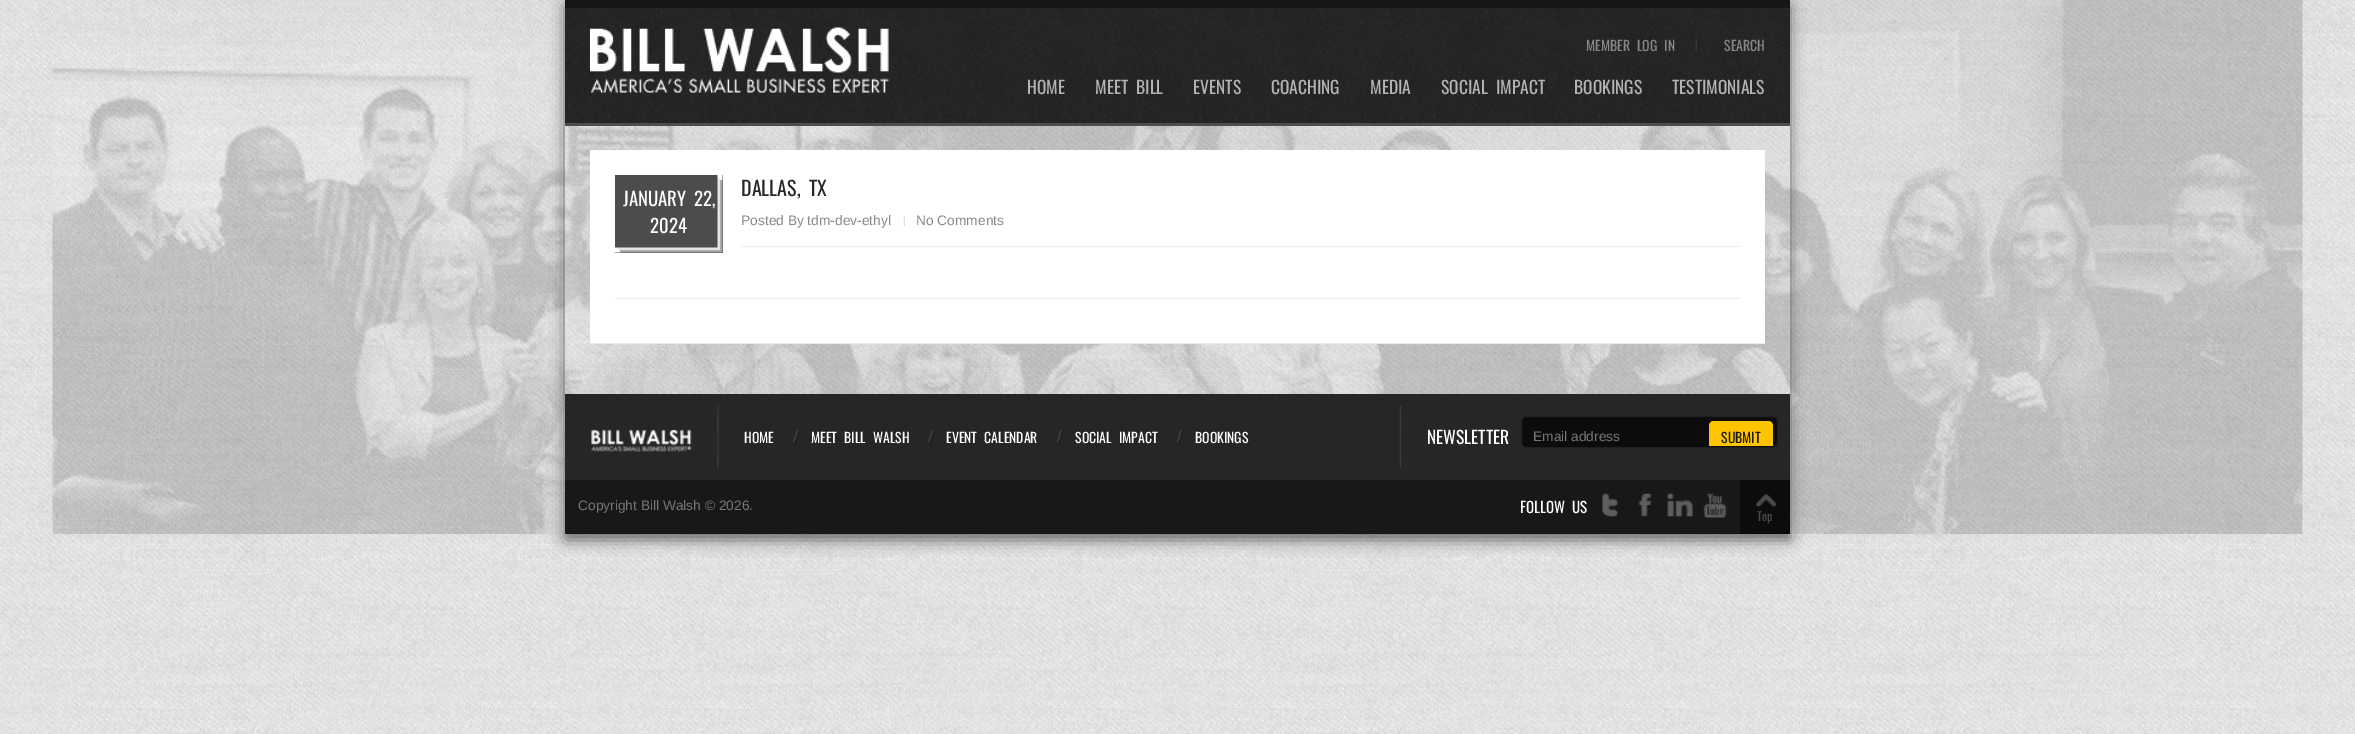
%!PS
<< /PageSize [2355 734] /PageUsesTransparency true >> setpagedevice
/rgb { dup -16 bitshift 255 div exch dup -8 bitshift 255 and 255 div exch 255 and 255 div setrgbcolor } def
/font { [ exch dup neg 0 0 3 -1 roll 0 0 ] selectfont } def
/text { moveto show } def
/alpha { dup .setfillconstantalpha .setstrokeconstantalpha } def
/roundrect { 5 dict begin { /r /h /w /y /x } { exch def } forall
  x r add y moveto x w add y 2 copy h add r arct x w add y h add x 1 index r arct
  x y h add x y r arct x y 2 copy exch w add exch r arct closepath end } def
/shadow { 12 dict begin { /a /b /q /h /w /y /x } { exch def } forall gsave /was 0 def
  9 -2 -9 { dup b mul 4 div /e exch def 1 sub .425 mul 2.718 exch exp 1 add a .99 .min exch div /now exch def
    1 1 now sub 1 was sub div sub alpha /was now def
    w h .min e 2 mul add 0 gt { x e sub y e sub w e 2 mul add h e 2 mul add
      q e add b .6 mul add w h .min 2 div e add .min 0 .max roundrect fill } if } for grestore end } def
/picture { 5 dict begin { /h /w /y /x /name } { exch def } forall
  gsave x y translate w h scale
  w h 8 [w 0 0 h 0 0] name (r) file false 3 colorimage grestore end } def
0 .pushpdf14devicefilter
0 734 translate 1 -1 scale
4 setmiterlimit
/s1 { /Oswald-Regular 13.75 font 16#888888 rgb } def
/s2 { /Oswald-Regular 17.5 font 16#B3B3B3 rgb } def
/s3 { /Oswald-Regular 18.75 font 16#FFFFFF rgb } def
/s4 { /LiberationSans-Regular 13.75 font 16#888888 rgb } def
/s5 { /Oswald-Regular 13.75 font 16#FFFFFF rgb } def
/s6 { /Oswald-Regular 17.5 font 16#FFFFFF rgb } def
/s7 { /LiberationSans-Regular 13.75 font 16#777777 rgb } def
/s8 { /Oswald-Regular 13.75 font 16#181818 rgb } def
/s9 { /Oswald-Regular 12 font 16#4C4C4C rgb } def
16#FFFFFF rgb
0 0 2355 734 rectfill
(pic1.raw) 0 0 2355 734 picture
(pic2.raw) 52 0 2251 534 picture
gsave
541 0 moveto 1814 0 lineto 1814 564 lineto 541 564 lineto closepath 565 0 moveto 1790 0 lineto 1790 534 lineto 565 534 lineto closepath eoclip newpath
16#666666 rgb
565 6 1225 534 0 7.5 1 shadow
grestore
(pic3.raw) 565 0 1225 123 picture
16#4D4D4D rgb
565 123 1225 3 rectfill
0.8 alpha
16#131313 rgb
565 0 1225 8 rectfill
1 alpha
(pic4.raw) 590 27 299 66 picture
(pic5.raw) 1695 39 4 13 picture
/Oswald-Regular 13.75 font
16#888888 rgb
1586 51 moveto 4 0 32 (MEMBER LOG IN) widthshow
(SEARCH) 1724 51 text
s2
(HOME) 1027 94 text
1095 94 moveto 4 0 32 (MEET BILL) widthshow
(EVENTS) 1193 94 text
(COACHING) 1271 94 text
(MEDIA) 1370 94 text
1441 94 moveto 4 0 32 (SOCIAL IMPACT) widthshow
(BOOKINGS) 1574 94 text
(TESTIMONIALS) 1672 94 text
16#FFFFFF rgb
590 150 1175 193 rectfill
16#EDEDED rgb
590 343 1175 1 rectfill
16#4C4C4C rgb
615 175 108 78 rectfill
(pic6.raw) 615 175 108 78 picture
/Oswald-Regular 18.75 font
16#FFFFFF rgb
623 206 moveto 4 0 32 (JANUARY 22,) widthshow
(2024) 650 233 text
16#EDEDED rgb
741 246 999 1 rectfill
/Oswald-Regular 20 font
16#262626 rgb
741 196 moveto 4 0 32 (DALLAS, TX) widthshow
s4
(Posted By tdm-dev-ethyl) 741 225 text
(pic7.raw) 903 216 2 11 picture
(No Comments) 916 225 text
16#EDEDED rgb
615 298 1125 1 rectfill
16#262626 rgb
565 394 1225 86 rectfill
16#4B4B4B rgb
1.2 setlinewidth
[1.25 1.25] 0 setdash
718 406 moveto 718 467.5 lineto stroke
(pic8.raw) 591 429 101 23 picture
s5
(HOME) 744 443 text
(pic9.raw) 792 430 8 14 picture
811 443 moveto 4 0 32 (MEET BILL WALSH) widthshow
(pic10.raw) 927 430 8 14 picture
946 443 moveto 4 0 32 (EVENT CALENDAR) widthshow
(pic11.raw) 1056 430 8 14 picture
1075 443 moveto 4 0 32 (SOCIAL IMPACT) widthshow
(pic11.raw) 1176 430 8 14 picture
(BOOKINGS) 1195 443 text
16#4B4B4B rgb
1400.5 406 moveto 1400.5 467.5 lineto stroke
s6
(NEWSLETTER) 1427 444 text
16#0C0C0C rgb
1521.5 416.5 256 31 4.5 roundrect gsave fill grestore
16#1F1F1F rgb
1 setlinewidth
[] 0 setdash
stroke
s7
(Email address) 1533 441 text
16#FFC400 rgb
1714 421 moveto 1768 421 lineto 1771 421 1773 423 1773 426 curveto 1773 446 lineto 1709 446 lineto 1709 426 lineto 1709 423 1711 421 1714 421 curveto closepath fill
s8
(SUBMIT) 1721 443 text
565 480 1175 54 rectfill
s7
(Copyright Bill Walsh © 2026.) 578 510 text
/Oswald-Regular 15 font
16#FFFFFF rgb
1520 513 moveto 4 0 32 (FOLLOW US) widthshow
(pic12.raw) 1602 493 16 24 picture
(pic13.raw) 1638 493 14 24 picture
(pic14.raw) 1667 493 26 24 picture
(pic15.raw) 1703 493 24 25 picture
16#0C0C0C rgb
1740 480 50 54 rectfill
(pic16.raw) 1756 493 21 14 picture
s9
(Top) 1757 521 text
.poppdf14devicefilter showpage
